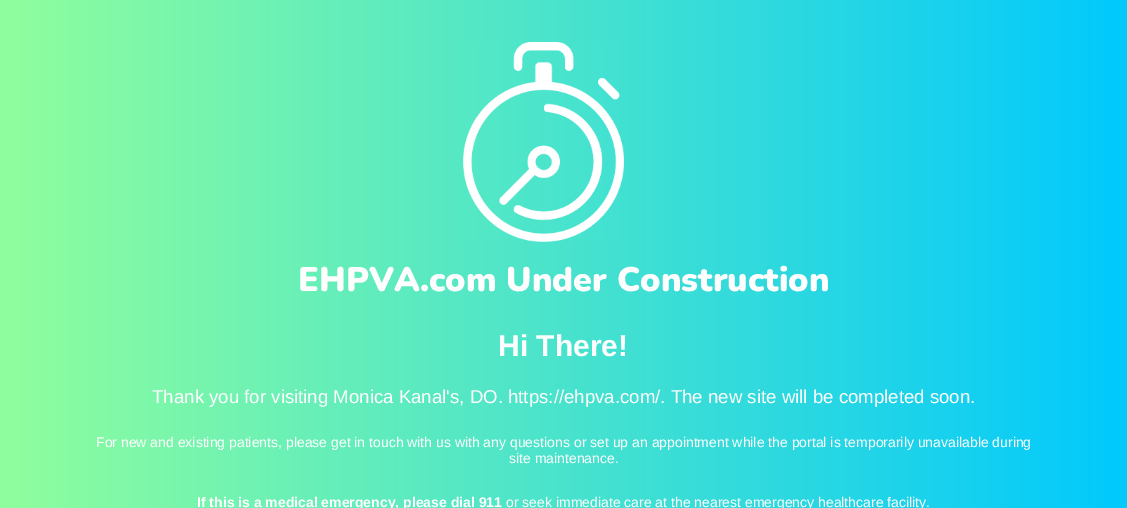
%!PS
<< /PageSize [1127 508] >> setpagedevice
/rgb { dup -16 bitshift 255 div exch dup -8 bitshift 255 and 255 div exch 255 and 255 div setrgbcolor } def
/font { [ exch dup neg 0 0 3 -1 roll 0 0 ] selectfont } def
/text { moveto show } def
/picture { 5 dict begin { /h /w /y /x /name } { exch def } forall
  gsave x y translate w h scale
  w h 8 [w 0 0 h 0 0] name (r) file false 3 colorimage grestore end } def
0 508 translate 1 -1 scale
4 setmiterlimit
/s1 { /Nunito-ExtraLight 34 font 16#FEFEFE rgb } def
/s2 { /LiberationSans-Bold 30 font 16#FEFEFE rgb } def
/s3 { /LiberationSans-Regular 18.65 font 16#FEFEFE rgb } def
/s4 { /LiberationSans-Regular 14 font 16#FEFEFE rgb } def
/s5 { /LiberationSans-Bold 14 font 16#FEFEFE rgb } def
16#FFFFFF rgb
0 0 1127 508 rectfill
gsave 0 0 moveto 1127 0 lineto 1127 508 lineto 0 508 lineto closepath clip newpath
<< /ShadingType 2 /ColorSpace /DeviceRGB /Coords [0 254 1127 254] /Extend [true true] /Function << /FunctionType 2 /Domain [0 1] /C0 [0.565 0.996 0.616] /C1 [0.004 0.788 0.992] /N 1 >> >> shfill grestore
(pic1.raw) 463 42 161 200 picture
(pic2.raw) 499 145 61 60 picture
s1
(EHPVA.com Under Construction) 298 291 text
s2
(Hi There!) 498 356 text
s3
(Thank you for visiting Monica Kanal's, DO. https://ehpva.com/. The new site will be completed soon.) 152 403 text
s4
(For new and existing patients, please get in touch with us with any questions or set up an appointment while the portal is temporarily unavailable during) 96 447 text
(site maintenance.) 509 463 text
s5
(If this is a medical emergency, please dial 911) 197 507 text
s4
(or seek immediate care at the nearest emergency healthcare facility.) 506 507 text
showpage
